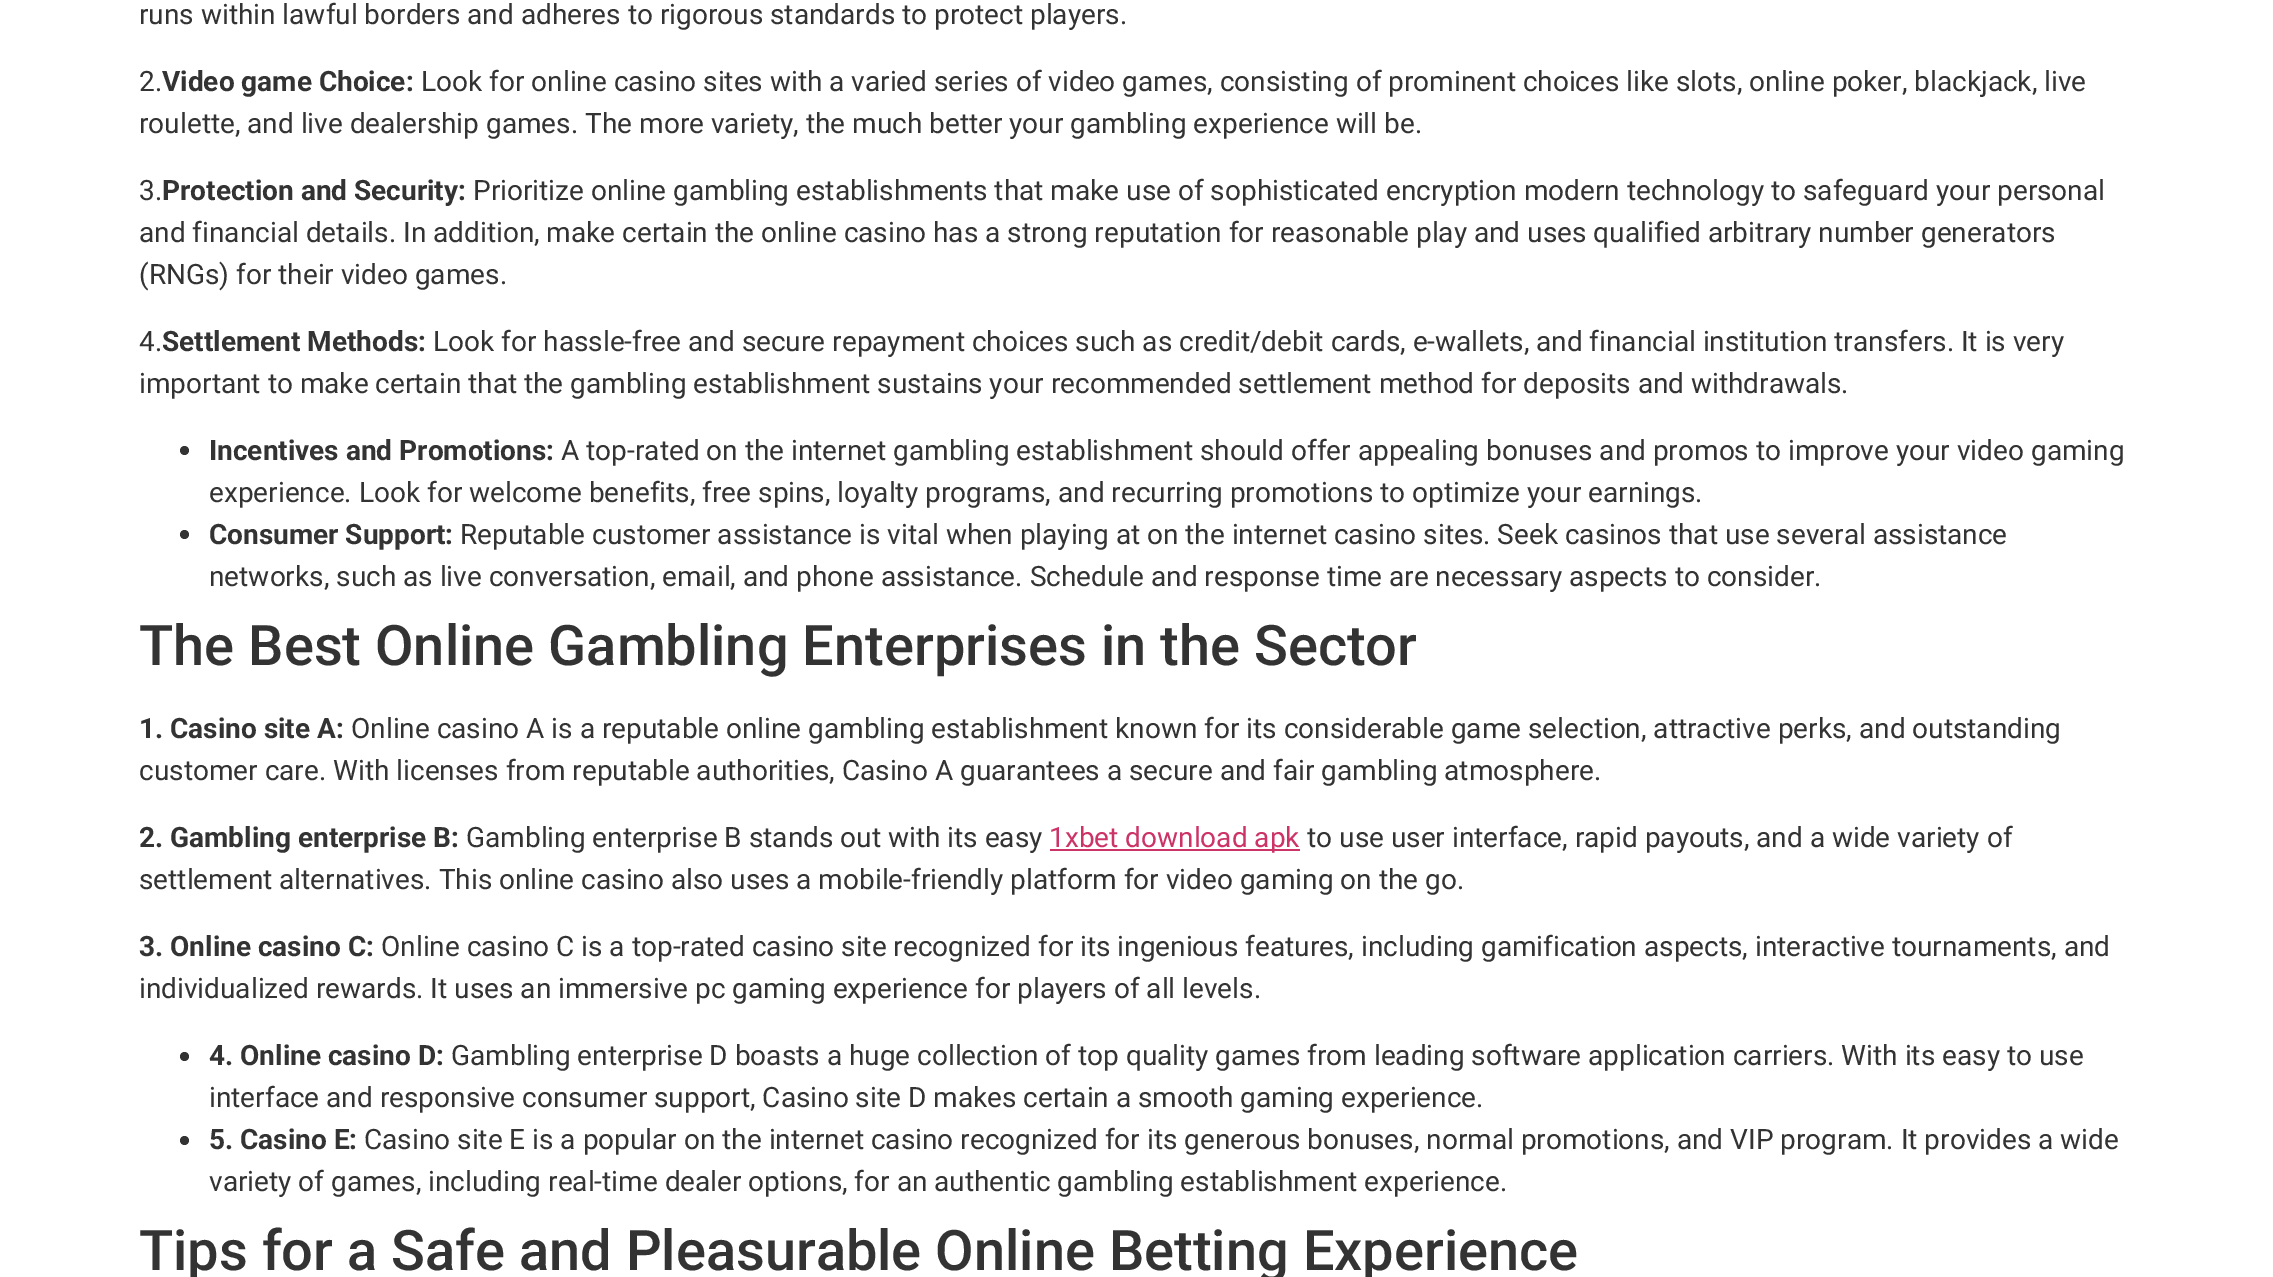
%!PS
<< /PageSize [2273 1277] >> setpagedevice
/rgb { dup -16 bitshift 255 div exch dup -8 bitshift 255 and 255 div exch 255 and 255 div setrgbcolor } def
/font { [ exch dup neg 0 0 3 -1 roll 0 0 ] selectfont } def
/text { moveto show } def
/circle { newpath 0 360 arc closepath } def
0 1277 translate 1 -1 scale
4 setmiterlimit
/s1 { /Roboto-Regular 28 font 16#333333 rgb } def
/s2 { /Roboto-Bold 28 font 16#333333 rgb } def
/s3 { /Roboto-Medium 56 font 16#333333 rgb } def
/s4 { /Roboto-Regular 28 font 16#CC3366 rgb } def
16#FFFFFF rgb
0 0 2273 1277 rectfill
s1
(runs within lawful borders and adheres to rigorous standards to protect players.) 139 24 text
(2.) 139 91 text
s2
(Video game Choice:) 162 91 text
s1
(Look for online casino sites with a varied series of video games, consisting of prominent choices like slots, online poker, blackjack, live) 421 91 text
(roulette, and live dealership games. The more variety, the much better your gambling experience will be.) 139 133 text
(3.) 139 200 text
s2
(Protection and Security:) 162 200 text
s1
(Prioritize online gambling establishments that make use of sophisticated encryption modern technology to safeguard your personal) 473 200 text
(and financial details. In addition, make certain the online casino has a strong reputation for reasonable play and uses qualified arbitrary number generators) 139 242 text
(\(RNGs\) for their video games.) 139 284 text
(4.) 139 351 text
s2
(Settlement Methods:) 162 351 text
s1
(Look for hassle-free and secure repayment choices such as credit/debit cards, e-wallets, and financial institution transfers. It is very) 433 351 text
(important to make certain that the gambling establishment sustains your recommended settlement method for deposits and withdrawals.) 139 393 text
184.5 450.5 4.5 circle fill
s2
(Incentives and Promotions:) 209 460 text
s1
(A top-rated on the internet gambling establishment should offer appealing bonuses and promos to improve your video gaming) 561 460 text
(experience. Look for welcome benefits, free spins, loyalty programs, and recurring promotions to optimize your earnings.) 209 502 text
184.5 534.5 4.5 circle fill
s2
(Consumer Support:) 209 544 text
s1
(Reputable customer assistance is vital when playing at on the internet casino sites. Seek casinos that use several assistance) 460 544 text
(networks, such as live conversation, email, and phone assistance. Schedule and response time are necessary aspects to consider.) 209 586 text
s3
(The Best Online Gambling Enterprises in the Sector) 139 665 text
s2
(1. Casino site A:) 139 738 text
s1
(Online casino A is a reputable online gambling establishment known for its considerable game selection, attractive perks, and outstanding) 351 738 text
(customer care. With licenses from reputable authorities, Casino A guarantees a secure and fair gambling atmosphere.) 139 780 text
s2
(2. Gambling enterprise B:) 139 847 text
s1
(Gambling enterprise B stands out with its easy) 466 847 text
16#CC3366 rgb
1050 849 250 2 rectfill
(1xbet download apk) 1049 847 text
s1
(to use user interface, rapid payouts, and a wide variety of) 1307 847 text
(settlement alternatives. This online casino also uses a mobile-friendly platform for video gaming on the go.) 139 889 text
s2
(3. Online casino C:) 139 956 text
s1
(Online casino C is a top-rated casino site recognized for its ingenious features, including gamification aspects, interactive tournaments, and) 381 956 text
(individualized rewards. It uses an immersive pc gaming experience for players of all levels.) 139 998 text
184.5 1056.5 4.5 circle fill
s2
(4. Online casino D:) 209 1065 text
s1
(Gambling enterprise D boasts a huge collection of top quality games from leading software application carriers. With its easy to use) 451 1065 text
(interface and responsive consumer support, Casino site D makes certain a smooth gaming experience.) 209 1107 text
184.5 1140.5 4.5 circle fill
s2
(5. Casino E:) 209 1149 text
s1
(Casino site E is a popular on the internet casino recognized for its generous bonuses, normal promotions, and VIP program. It provides a wide) 364 1149 text
(variety of games, including real-time dealer options, for an authentic gambling establishment experience.) 209 1191 text
s3
(Tips for a Safe and Pleasurable Online Betting Experience) 139 1270 text
showpage
